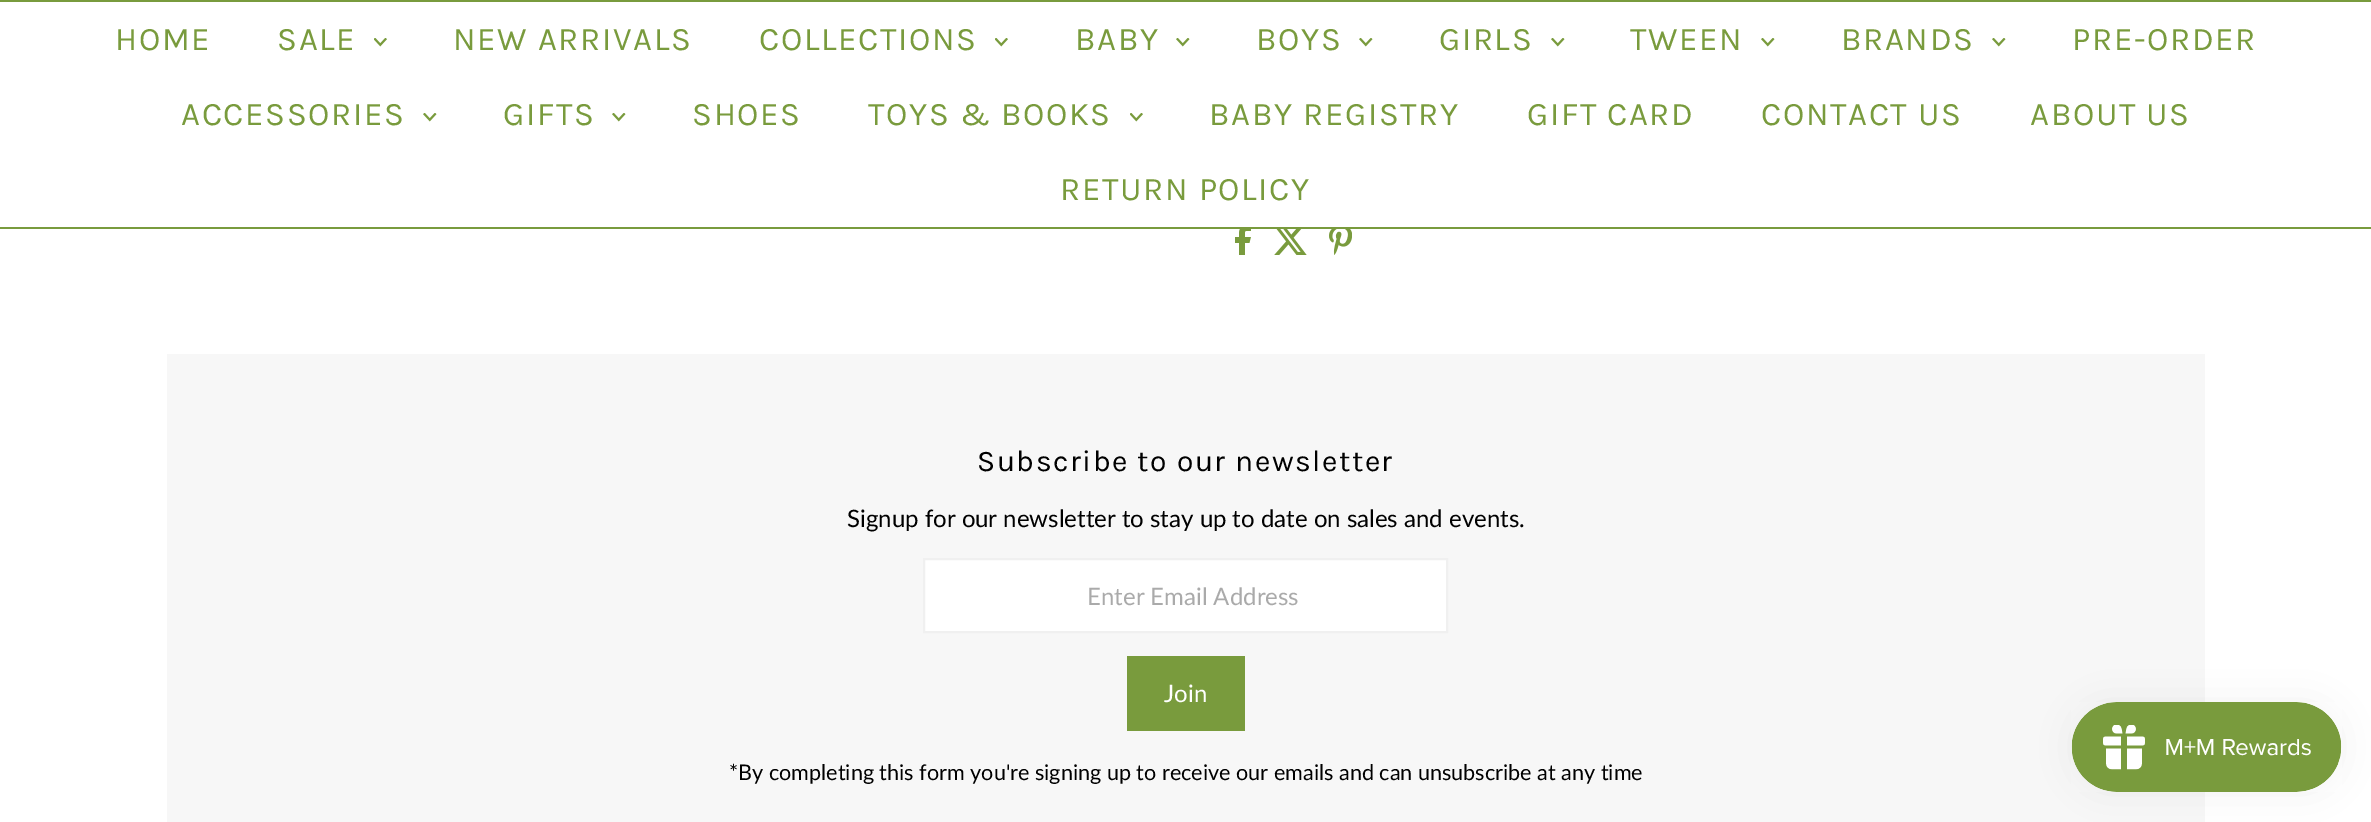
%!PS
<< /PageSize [2371 822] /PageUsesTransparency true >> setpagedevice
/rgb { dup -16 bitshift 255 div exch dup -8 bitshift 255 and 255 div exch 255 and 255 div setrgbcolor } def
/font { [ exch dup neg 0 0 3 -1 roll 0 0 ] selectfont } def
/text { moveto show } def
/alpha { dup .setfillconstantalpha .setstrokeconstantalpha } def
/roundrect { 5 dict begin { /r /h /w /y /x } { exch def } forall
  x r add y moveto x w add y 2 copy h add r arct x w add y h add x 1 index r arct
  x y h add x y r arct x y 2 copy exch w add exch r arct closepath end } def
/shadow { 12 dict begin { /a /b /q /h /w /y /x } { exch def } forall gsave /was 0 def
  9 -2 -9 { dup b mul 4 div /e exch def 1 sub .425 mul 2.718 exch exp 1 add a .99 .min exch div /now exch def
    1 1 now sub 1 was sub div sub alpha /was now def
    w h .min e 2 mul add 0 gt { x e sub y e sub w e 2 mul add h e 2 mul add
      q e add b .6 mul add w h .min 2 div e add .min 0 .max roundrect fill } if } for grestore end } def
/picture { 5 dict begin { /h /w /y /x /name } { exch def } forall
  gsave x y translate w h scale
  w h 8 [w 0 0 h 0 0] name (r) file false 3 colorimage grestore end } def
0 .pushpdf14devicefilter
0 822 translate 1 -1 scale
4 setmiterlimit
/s1 { /Lato-Regular 24 font 16#000000 rgb } def
/s2 { /Lato-Regular 24 font 16#AAAAAA rgb } def
/s3 { /Lato-Regular 24 font 16#FFFFFF rgb } def
/s4 { /Lato-Regular 21.6 font 16#000000 rgb } def
16#FFFFFF rgb
0 0 2371 822 rectfill
16#799B3D rgb
0 0 2371 2 rectfill
0 227 2371 2 rectfill
/Karla-Regular 33 font
115 50 moveto 1.6 0 (HOME) ashow
277 50 moveto 1.6 0 (SALE) ashow
(pic1.raw) 374 38 13 9 picture
453 50 moveto 1.6 0 (NEW ARRIVALS) ashow
759 50 moveto 1.6 0 (COLLECTIONS) ashow
(pic1.raw) 995 38 13 9 picture
1075 50 moveto 1.6 0 (BABY) ashow
(pic2.raw) 1176 38 14 9 picture
1256 50 moveto 1.6 0 (BOYS) ashow
(pic2.raw) 1359 38 14 9 picture
1439 50 moveto 1.6 0 (GIRLS) ashow
(pic2.raw) 1551 38 14 9 picture
1630 50 moveto 1.6 0 (TWEEN) ashow
(pic2.raw) 1761 38 14 9 picture
1841 50 moveto 1.6 0 (BRANDS) ashow
(pic2.raw) 1992 38 14 9 picture
2072 50 moveto 1.6 0 (PRE-ORDER) ashow
181 125 moveto 1.6 0 (ACCESSORIES) ashow
(pic2.raw) 423 113 14 9 picture
503 125 moveto 1.6 0 (GIFTS) ashow
(pic2.raw) 612 113 14 9 picture
692 125 moveto 1.6 0 (SHOES) ashow
868 125 moveto 1.6 0 (TOYS & BOOKS) ashow
(pic1.raw) 1130 113 13 9 picture
1209 125 moveto 1.6 0 (BABY REGISTRY) ashow
1527 125 moveto 1.6 0 (GIFT CARD) ashow
1761 125 moveto 1.6 0 (CONTACT US) ashow
2030 125 moveto 1.6 0 (ABOUT US) ashow
1060 200 moveto 1.6 0 (RETURN POLICY) ashow
(pic3.raw) 1235 229 16 26 picture
(pic4.raw) 1274 229 33 26 picture
(pic5.raw) 1329 229 23 26 picture
16#F7F7F7 rgb
167 354 2038 468 rectfill
/Karla-Regular 30 font
16#000000 rgb
977 471 moveto 1.5 0 (Subscribe to our newsletter) ashow
s1
(Signup for our newsletter to stay up to date on sales and events.) 847 527 text
16#FFFFFF rgb
924 559 moveto 1447 559 lineto 1447 632 lineto 924 632 lineto closepath gsave fill grestore
16#F0F0F0 rgb
2 setlinewidth
stroke
s2
(Enter Email Address) 1087 605 text
16#799B3D rgb
1127 656 118 75 rectfill
s3
(Join) 1164 702 text
s4
(*By completing this form you're signing up to receive our emails and can unsubscribe at any time) 729 780 text
2072 702 270 90 45 19 0.05 shadow
(pic6.raw) 2071 702 271 90 picture
.poppdf14devicefilter showpage
